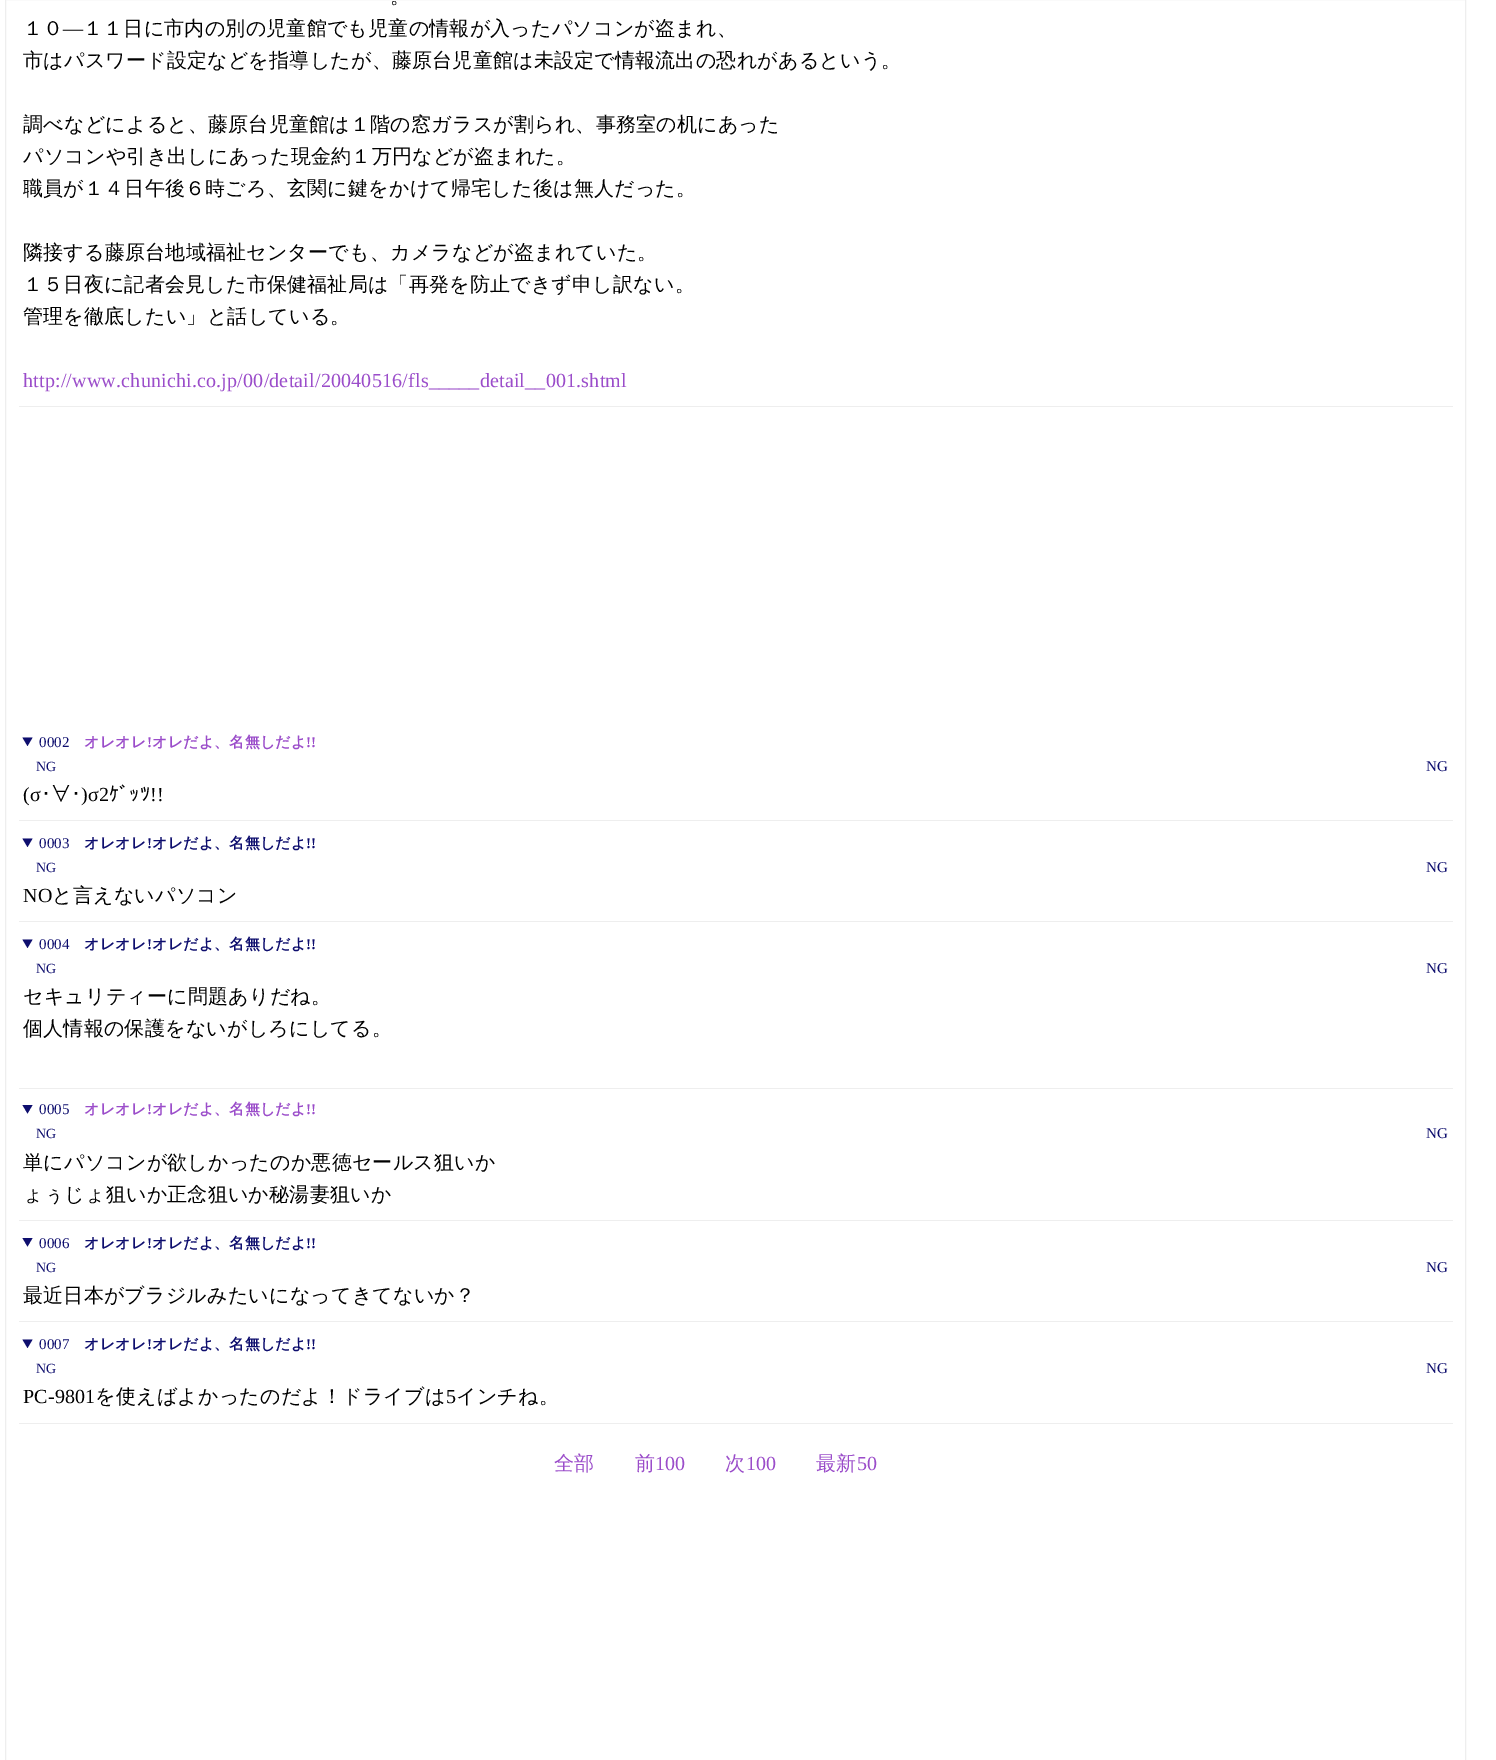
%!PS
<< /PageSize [1496 1760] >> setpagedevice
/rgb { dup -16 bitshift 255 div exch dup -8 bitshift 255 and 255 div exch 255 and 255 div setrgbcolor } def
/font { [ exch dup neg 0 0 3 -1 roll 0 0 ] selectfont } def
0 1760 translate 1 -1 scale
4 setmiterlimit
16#FFFFFF rgb
0 0 1496 1760 rectfill
16#EEEEEE rgb
5.5 -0.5 1460 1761 rectstroke
19 406 1434 1 rectfill
/WenQuanYiZenHei-Medium 20 font
16#000000 rgb
390 3 moveto 0.2 0 (。) ashow
23 35 moveto 0.2 0 (１０) ashow
/LiberationSerif-Regular 20 font
63 35 moveto 0.2 0 (―) ashow
/WenQuanYiZenHei-Medium 20 font
83 35 moveto 0.2 0 (１１日に市内の別の児童館でも児童の情報が入ったパソコンが盗まれ、) ashow
23 67 moveto 0.2 0 (市はパスワード設定などを指導したが、藤原台児童館は未設定で情報流出の恐れがあるという。) ashow
23 131 moveto 0.2 0 (調べなどによると、藤原台児童館は１階の窓ガラスが割られ、事務室の机にあった) ashow
23 163 moveto 0.2 0 (パソコンや引き出しにあった現金約１万円などが盗まれた。) ashow
23 195 moveto 0.2 0 (職員が１４日午後６時ごろ、玄関に鍵をかけて帰宅した後は無人だった。) ashow
23 259 moveto 0.2 0 (隣接する藤原台地域福祉センターでも、カメラなどが盗まれていた。) ashow
23 291 moveto 0.2 0 (１５日夜に記者会見した市保健福祉局は「再発を防止できず申し訳ない。) ashow
23 323 moveto 0.2 0 (管理を徹底したい」と話している。) ashow
/LiberationSerif-Regular 20 font
16#9B4DCA rgb
23 387 moveto 0.2 0 (http://www.chunichi.co.jp/00/detail/20040516/fls_____detail__001.shtml) ashow
16#EEEEEE rgb
19 820 1434 1 rectfill
16#0E0E6E rgb
22.5 737.5 moveto 32.5 737.5 lineto 27.5 746 lineto closepath fill
/LiberationSerif-Regular 15 font
39 747 moveto 0.2 0 (0002) ashow
/WenQuanYiZenHei-Bold 15 font
16#9B4DCA rgb
84 747 moveto 0.2 0 (オレオレ) ashow
/LiberationSerif-Bold 15 font
147 747 moveto 0.2 0 (!) ashow
/WenQuanYiZenHei-Bold 15 font
152 747 moveto 0.2 0 (オレだよ、名無しだよ) ashow
/LiberationSerif-Bold 15 font
306 747 moveto 0.2 0 (!!) ashow
/LiberationSerif-Regular 14 font
16#0E0E6E rgb
36 771 moveto 0.2 0 (NG) ashow
/LiberationSerif-Regular 15 font
1426 771 moveto 0.2 0 (NG) ashow
/LiberationSerif-Regular 20 font
16#000000 rgb
23 801 moveto 0.2 0 (\(σ) ashow
/IPAPGothic-Regular 20 font
41 801 moveto 0.2 0 (･∀･) ashow
/LiberationSerif-Regular 20 font
81 801 moveto 0.2 0 (\)σ2) ashow
/IPAPGothic-Regular 20 font
109 801 moveto 0.2 0 (ｹﾞｯﾂ) ashow
/LiberationSerif-Regular 20 font
150 801 moveto 0.2 0 (!!) ashow
16#EEEEEE rgb
19 921 1434 1 rectfill
16#0E0E6E rgb
22.5 838.5 moveto 32.5 838.5 lineto 27.5 847 lineto closepath fill
/LiberationSerif-Regular 15 font
39 848 moveto 0.2 0 (0003) ashow
/WenQuanYiZenHei-Bold 15 font
84 848 moveto 0.2 0 (オレオレ) ashow
/LiberationSerif-Bold 15 font
147 848 moveto 0.2 0 (!) ashow
/WenQuanYiZenHei-Bold 15 font
152 848 moveto 0.2 0 (オレだよ、名無しだよ) ashow
/LiberationSerif-Bold 15 font
306 848 moveto 0.2 0 (!!) ashow
/LiberationSerif-Regular 14 font
36 872 moveto 0.2 0 (NG) ashow
/LiberationSerif-Regular 15 font
1426 872 moveto 0.2 0 (NG) ashow
/LiberationSerif-Regular 20 font
16#000000 rgb
23 902 moveto 0.2 0 (NO) ashow
/WenQuanYiZenHei-Medium 20 font
52 902 moveto 0.2 0 (と言えないパソコン) ashow
16#EEEEEE rgb
19 1088 1434 1 rectfill
16#0E0E6E rgb
22.5 939.5 moveto 32.5 939.5 lineto 27.5 948 lineto closepath fill
/LiberationSerif-Regular 15 font
39 949 moveto 0.2 0 (0004) ashow
/WenQuanYiZenHei-Bold 15 font
84 949 moveto 0.2 0 (オレオレ) ashow
/LiberationSerif-Bold 15 font
147 949 moveto 0.2 0 (!) ashow
/WenQuanYiZenHei-Bold 15 font
152 949 moveto 0.2 0 (オレだよ、名無しだよ) ashow
/LiberationSerif-Bold 15 font
306 949 moveto 0.2 0 (!!) ashow
/LiberationSerif-Regular 14 font
36 973 moveto 0.2 0 (NG) ashow
/LiberationSerif-Regular 15 font
1426 973 moveto 0.2 0 (NG) ashow
/WenQuanYiZenHei-Medium 20 font
16#000000 rgb
23 1003 moveto 0.2 0 (セキュリティーに問題ありだね。) ashow
23 1035 moveto 0.2 0 (個人情報の保護をないがしろにしてる。) ashow
16#EEEEEE rgb
19 1220 1434 1 rectfill
16#0E0E6E rgb
22.5 1105 moveto 32.5 1105 lineto 27.5 1113.5 lineto closepath fill
/LiberationSerif-Regular 15 font
39 1114 moveto 0.2 0 (0005) ashow
/WenQuanYiZenHei-Bold 15 font
16#9B4DCA rgb
84 1114 moveto 0.2 0 (オレオレ) ashow
/LiberationSerif-Bold 15 font
147 1114 moveto 0.2 0 (!) ashow
/WenQuanYiZenHei-Bold 15 font
152 1114 moveto 0.2 0 (オレだよ、名無しだよ) ashow
/LiberationSerif-Bold 15 font
306 1114 moveto 0.2 0 (!!) ashow
/LiberationSerif-Regular 14 font
16#0E0E6E rgb
36 1138 moveto 0.2 0 (NG) ashow
/LiberationSerif-Regular 15 font
1426 1138 moveto 0.2 0 (NG) ashow
/WenQuanYiZenHei-Medium 20 font
16#000000 rgb
23 1169 moveto 0.2 0 (単にパソコンが欲しかったのか悪徳セールス狙いか) ashow
23 1201 moveto 0.2 0 (ょぅじょ狙いか正念狙いか秘湯妻狙いか) ashow
16#EEEEEE rgb
19 1321 1434 1 rectfill
16#0E0E6E rgb
22.5 1238 moveto 32.5 1238 lineto 27.5 1246.5 lineto closepath fill
/LiberationSerif-Regular 15 font
39 1248 moveto 0.2 0 (0006) ashow
/WenQuanYiZenHei-Bold 15 font
84 1248 moveto 0.2 0 (オレオレ) ashow
/LiberationSerif-Bold 15 font
147 1248 moveto 0.2 0 (!) ashow
/WenQuanYiZenHei-Bold 15 font
152 1248 moveto 0.2 0 (オレだよ、名無しだよ) ashow
/LiberationSerif-Bold 15 font
306 1248 moveto 0.2 0 (!!) ashow
/LiberationSerif-Regular 14 font
36 1272 moveto 0.2 0 (NG) ashow
/LiberationSerif-Regular 15 font
1426 1272 moveto 0.2 0 (NG) ashow
/WenQuanYiZenHei-Medium 20 font
16#000000 rgb
23 1302 moveto 0.2 0 (最近日本がブラジルみたいになってきてないか？) ashow
16#EEEEEE rgb
19 1423 1434 1 rectfill
16#0E0E6E rgb
22.5 1339.5 moveto 32.5 1339.5 lineto 27.5 1348 lineto closepath fill
/LiberationSerif-Regular 15 font
39 1349 moveto 0.2 0 (0007) ashow
/WenQuanYiZenHei-Bold 15 font
84 1349 moveto 0.2 0 (オレオレ) ashow
/LiberationSerif-Bold 15 font
147 1349 moveto 0.2 0 (!) ashow
/WenQuanYiZenHei-Bold 15 font
152 1349 moveto 0.2 0 (オレだよ、名無しだよ) ashow
/LiberationSerif-Bold 15 font
306 1349 moveto 0.2 0 (!!) ashow
/LiberationSerif-Regular 14 font
36 1373 moveto 0.2 0 (NG) ashow
/LiberationSerif-Regular 15 font
1426 1373 moveto 0.2 0 (NG) ashow
/LiberationSerif-Regular 20 font
16#000000 rgb
23 1403 moveto 0.2 0 (PC-9801) ashow
/WenQuanYiZenHei-Medium 20 font
95 1403 moveto 0.2 0 (を使えばよかったのだよ！ドライブは) ashow
/LiberationSerif-Regular 20 font
446 1403 moveto 0.2 0 (5) ashow
/WenQuanYiZenHei-Medium 20 font
456 1403 moveto 0.2 0 (インチね。) ashow
16#9B4DCA rgb
554 1470 moveto 0.2 0 (全部) ashow
635 1470 moveto 0.2 0 (前) ashow
/LiberationSerif-Regular 20 font
655 1470 moveto 0.2 0 (100) ashow
/WenQuanYiZenHei-Medium 20 font
725 1470 moveto 0.2 0 (次) ashow
/LiberationSerif-Regular 20 font
746 1470 moveto 0.2 0 (100) ashow
/WenQuanYiZenHei-Medium 20 font
816 1470 moveto 0.2 0 (最新) ashow
/LiberationSerif-Regular 20 font
857 1470 moveto 0.2 0 (50) ashow
showpage
